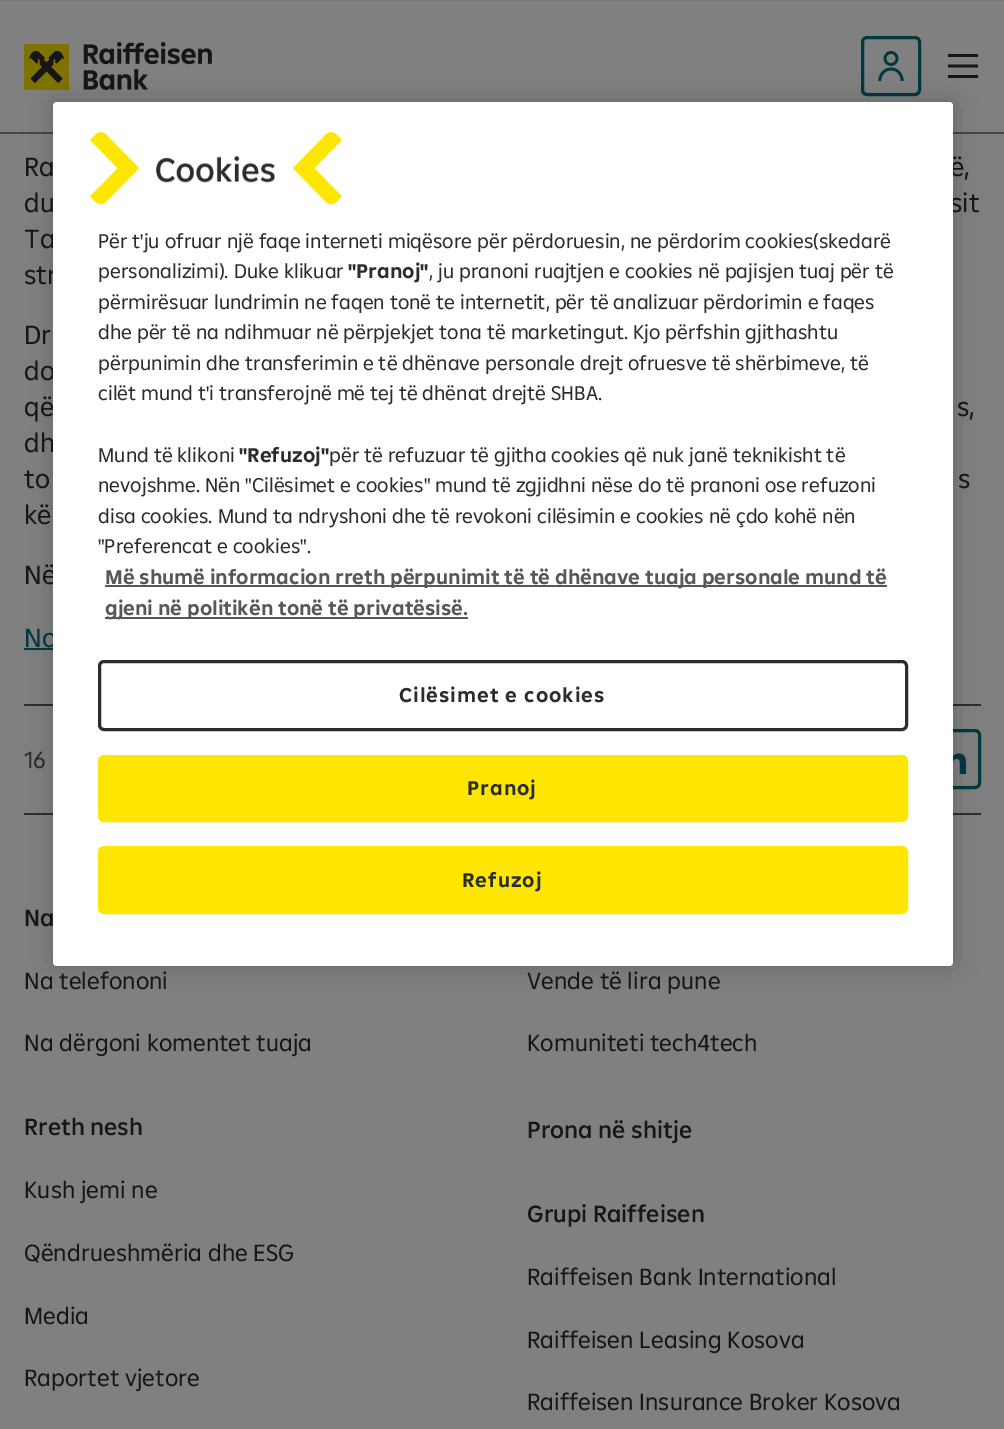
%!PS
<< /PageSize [1004 1429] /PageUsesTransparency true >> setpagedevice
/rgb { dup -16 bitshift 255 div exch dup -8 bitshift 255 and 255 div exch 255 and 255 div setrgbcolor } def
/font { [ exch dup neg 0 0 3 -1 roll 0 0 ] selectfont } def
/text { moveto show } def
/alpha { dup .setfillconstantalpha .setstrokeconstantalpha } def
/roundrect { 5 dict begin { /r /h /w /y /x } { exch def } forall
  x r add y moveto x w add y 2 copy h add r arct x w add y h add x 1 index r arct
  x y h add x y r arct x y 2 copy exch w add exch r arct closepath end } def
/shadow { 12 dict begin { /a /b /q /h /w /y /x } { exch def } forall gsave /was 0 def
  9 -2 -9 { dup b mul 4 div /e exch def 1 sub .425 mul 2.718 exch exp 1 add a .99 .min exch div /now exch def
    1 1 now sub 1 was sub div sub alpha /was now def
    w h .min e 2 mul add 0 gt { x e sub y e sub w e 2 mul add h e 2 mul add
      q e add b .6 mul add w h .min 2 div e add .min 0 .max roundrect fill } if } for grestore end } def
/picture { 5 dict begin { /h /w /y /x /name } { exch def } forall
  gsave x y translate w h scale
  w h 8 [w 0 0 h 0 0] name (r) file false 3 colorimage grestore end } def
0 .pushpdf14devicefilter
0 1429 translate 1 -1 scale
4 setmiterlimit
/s1 { /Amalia-Regular 27 font 16#16171A rgb } def
/s2 { /Amalia-Regular 27 font 16#023840 rgb } def
/s3 { /Amalia-Regular 24 font 16#2B2C2E rgb } def
/s4 { /Amalia-Medium 24 font 16#16171A rgb } def
/s5 { /Amalia-Regular 24 font 16#16171A rgb } def
/s6 { /Amalia-Regular 20.4 font 16#2B2C2E rgb } def
/s7 { /Amalia-Bold 20.4 font 16#2B2C2E rgb } def
/s8 { /Amalia-Bold 20.4 font 16#55575D rgb } def
16#808080 rgb
0 0 1004 1429 rectfill
16#474749 rgb
0 132 1004 2 rectfill
16#777778 rgb
0 0 1004 1 rectfill
(pic1.raw) 24 42 188 48 picture
16#023840 rgb
3 setlinewidth
862.5 37.5 57 57 4.5 roundrect stroke
(pic2.raw) 878 51 26 30 picture
(pic3.raw) 948 54 30 24 picture
s1
(Ra) 24 176 text
(ë,) 950 176 text
(du) 24 212 text
(sit) 950 212 text
(Ta) 24 248 text
(str) 24 284 text
(Dr) 24 344 text
(do) 24 380 text
(që) 24 416 text
(s,) 957 416 text
(dh) 24 452 text
(to) 24 488 text
(s) 958 488 text
(kë) 24 524 text
(Në) 24 584 text
s2
(No) 24 647 text
24 648 29 2 rectfill
16#2B2C2E rgb
24 704 957 2 rectfill
s3
(16) 24 768 text
16#023840 rgb
922.5 730.5 57 57 4.5 roundrect stroke
(pic4.raw) 953 753 13 21 picture
16#2B2C2E rgb
24 813 957 2 rectfill
s4
(Na) 24 926 text
s5
(Na telefononi) 24 989 text
(Na dërgoni komentet tuaja) 24 1051 text
(Vende të lira pune) 527 989 text
(Komuniteti tech4tech) 527 1051 text
s4
(Rreth nesh) 24 1135 text
s5
(Kush jemi ne) 24 1198 text
(Qëndrueshmëria dhe ESG) 24 1261 text
(Media) 24 1324 text
(Raportet vjetore) 24 1386 text
s4
(Prona në shitje) 527 1138 text
(Grupi Raiffeisen) 527 1222 text
s5
(Raiffeisen Bank International) 527 1285 text
(Raiffeisen Leasing Kosova) 527 1348 text
(Raiffeisen Insurance Broker Kosova) 527 1410 text
16#000000 rgb
53 102 900 864 4 13.5 0.2 shadow
16#FFFFFF rgb
53 102 900 864 4 roundrect fill
(pic5.raw) 90 132 252 73 picture
s6
(Për t'ju ofruar një faqe interneti miqësore për përdoruesin, ne përdorim cookies\(skedarë) 98 248 text
(personalizimi\). Duke klikuar) 98 278 text
s7
("Pranoj") 348 278 text
s6
(, ju pranoni ruajtjen e cookies në pajisjen tuaj për të) 429 278 text
(përmirësuar lundrimin ne faqen tonë te internetit, për të analizuar përdorimin e faqes) 98 309 text
(dhe për të na ndihmuar në përpjekjet tona të marketingut. Kjo përfshin gjithashtu) 98 339 text
(përpunimin dhe transferimin e të dhënave personale drejt ofruesve të shërbimeve, të) 98 370 text
(cilët mund t'i transferojnë më tej të dhënat drejtë SHBA.) 98 400 text
(Mund të klikoni) 98 462 text
s7
("Refuzoj") 239 462 text
s6
(për të refuzuar të gjitha cookies që nuk janë teknikisht të) 329 462 text
(nevojshme. Nën "Cilësimet e cookies" mund të zgjidhni nëse do të pranoni ose refuzoni) 98 492 text
(disa cookies. Mund ta ndryshoni dhe të revokoni cilësimin e cookies në çdo kohë nën) 98 523 text
("Preferencat e cookies".) 98 553 text
16#55575D rgb
105 585 782 2 rectfill
s8
(Më shumë informacion rreth përpunimit të të dhënave tuaja personale mund të) 105 584 text
105 617 363 2 rectfill
(gjeni në politikën tonë të privatësisë.) 105 615 text
16#2B2D33 rgb
99.5 661.5 807 68 4.5 roundrect stroke
16#2B2C2E rgb
399 702 moveto 1 0 (Cilësimet e cookies) ashow
16#FEE600 rgb
99 756 808 65 5 roundrect gsave fill grestore
2 setlinewidth
stroke
16#2B2C2E rgb
467 795 moveto 1 0 (Pranoj) ashow
16#FEE600 rgb
99 847 808 66 5 roundrect gsave fill grestore
stroke
16#2B2C2E rgb
462 887 moveto 1 0 (Refuzoj) ashow
.poppdf14devicefilter showpage
